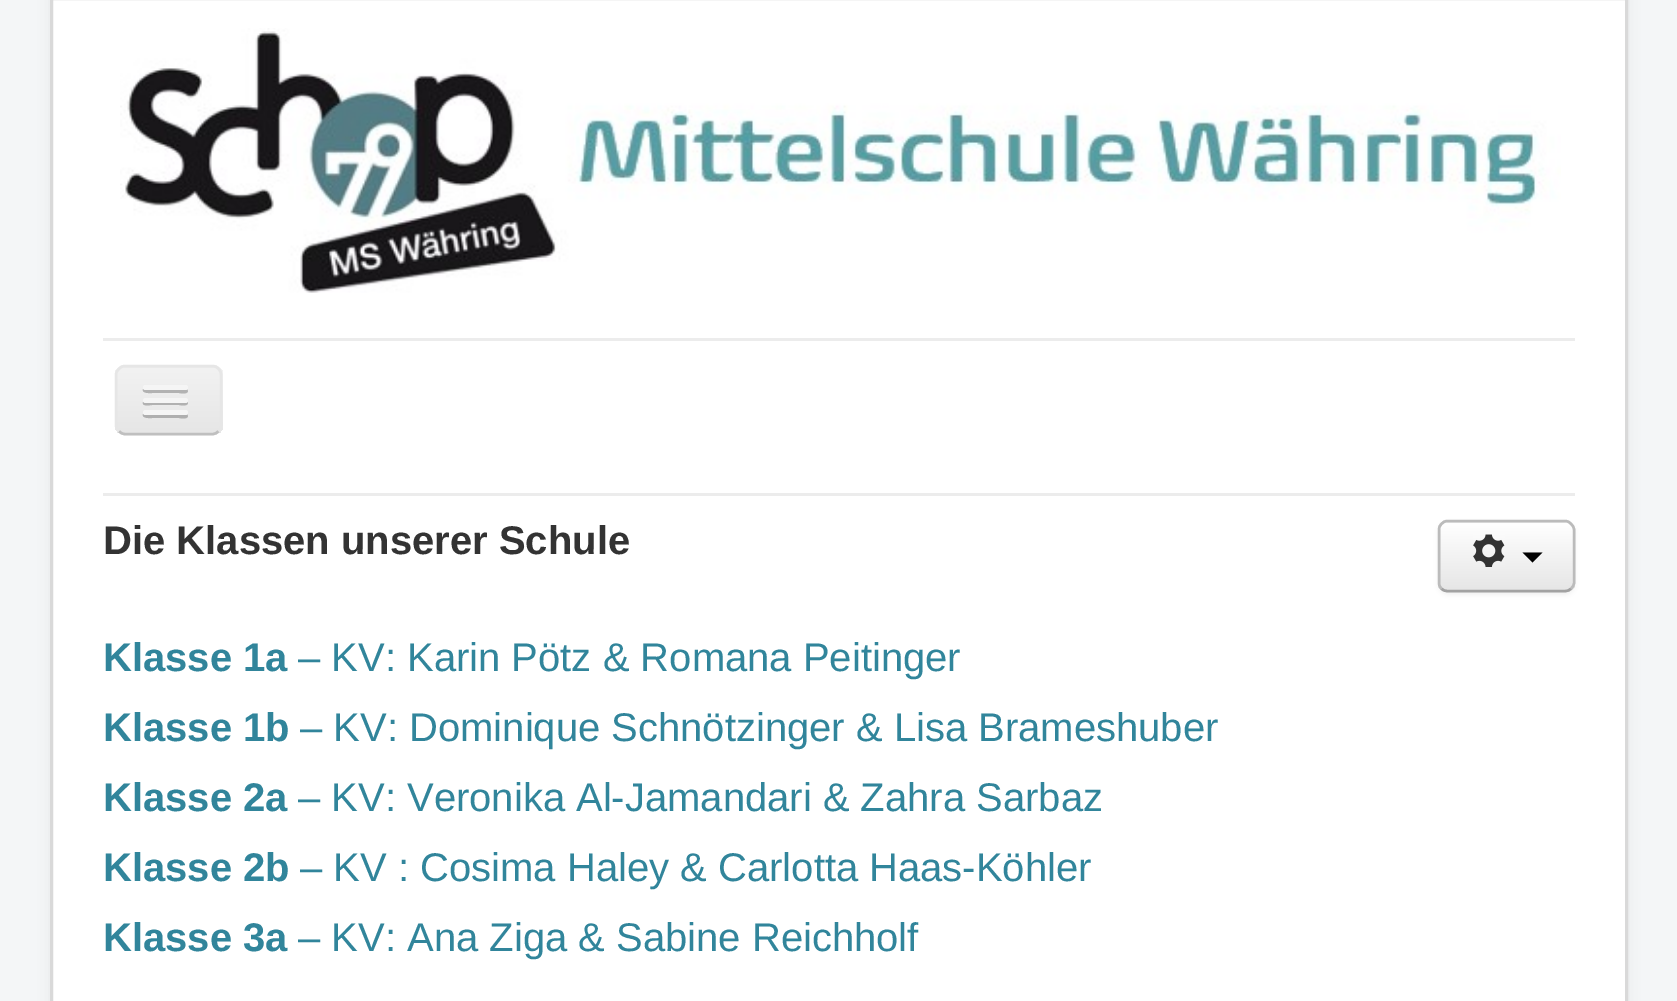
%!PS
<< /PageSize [1677 1001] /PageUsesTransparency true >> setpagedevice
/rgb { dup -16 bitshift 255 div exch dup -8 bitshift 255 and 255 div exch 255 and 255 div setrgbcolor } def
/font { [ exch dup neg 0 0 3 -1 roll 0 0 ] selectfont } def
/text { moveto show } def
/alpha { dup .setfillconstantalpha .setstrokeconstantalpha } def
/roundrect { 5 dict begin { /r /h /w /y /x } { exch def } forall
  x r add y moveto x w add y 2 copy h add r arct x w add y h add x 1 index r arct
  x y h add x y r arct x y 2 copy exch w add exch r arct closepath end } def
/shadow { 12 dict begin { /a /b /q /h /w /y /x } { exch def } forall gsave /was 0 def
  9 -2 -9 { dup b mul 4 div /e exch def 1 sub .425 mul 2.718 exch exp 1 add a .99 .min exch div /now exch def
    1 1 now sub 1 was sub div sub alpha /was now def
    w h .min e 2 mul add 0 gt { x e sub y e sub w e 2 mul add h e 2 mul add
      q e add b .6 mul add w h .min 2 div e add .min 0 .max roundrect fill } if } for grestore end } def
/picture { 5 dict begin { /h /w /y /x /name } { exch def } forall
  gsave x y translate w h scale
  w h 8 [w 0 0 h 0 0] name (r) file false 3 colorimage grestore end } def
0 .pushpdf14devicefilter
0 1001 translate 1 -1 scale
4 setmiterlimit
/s1 { /LiberationSans-Bold 40 font 16#333333 rgb } def
/s2 { /LiberationSans-Bold 40 font 16#31859B rgb } def
/s3 { /LiberationSans-Regular 40 font 16#31859B rgb } def
16#F4F6F7 rgb
0 0 1677 1001 rectfill
16#000000 rgb
50 -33 1578 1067 10 7.5 0.05 shadow
16#FFFFFF rgb
51.5 -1.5 moveto 1626.5 -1.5 lineto 1626.5 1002.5 lineto 51.5 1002.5 lineto closepath gsave fill grestore
16#D9D9D9 rgb
3 setlinewidth
stroke
(pic1.raw) 120 28 1441 265 picture
16#ECECEC rgb
103 338 1472 3 rectfill
103 493 1472 3 rectfill
16#EDEDED rgb
115 365 108 70 10 roundrect fill
gsave
115 365 108 70 10 roundrect clip newpath
gsave 115 368 moveto 223 368 lineto 223 433 lineto 115 433 lineto closepath clip newpath
<< /ShadingType 2 /ColorSpace /DeviceRGB /Coords [169 368 169 433] /Extend [true true] /Function << /FunctionType 2 /Domain [0 1] /C0 [0.949 0.949 0.949] /C1 [0.902 0.902 0.902] /N 1 >> >> shfill grestore
grestore
16#BFBFBF rgb
2.5 setlinewidth
218.5 431 moveto 217 433 215 434 212.5 434 curveto 125 434 lineto 122.5 434 120.5 433 119 431 curveto stroke
16#E6E6E6 rgb
119 431 moveto 117 429.5 116 427.5 116 425 curveto 116 375 lineto 116 372.5 117 370.5 119 369 curveto 120.5 367 122.5 366 125 366 curveto 212.5 366 lineto 215 366 217 367 218.5 369 curveto 220.5 370.5 221 372.5 221 375 curveto 221 425 lineto 221 427.5 220.5 429.5 218.5 431 curveto stroke
16#B2B2B2 rgb
143 389 moveto 141 394 152 393 152 393 curveto 179 393 lineto 180 393 187 395 188 391 curveto 187 389 lineto 185 390 lineto 182 390 145 391 143 389 curveto closepath fill
16#F5F5F5 rgb
143 385 45 5 2.5 roundrect fill
16#B1B1B1 rgb
143 402 moveto 141 407 151 405 152 405 curveto 179 405 lineto 180 405 187 407 188 403 curveto 187 401 lineto 185 402 lineto 145 402 lineto closepath fill
16#F5F5F5 rgb
143 398 45 5 2.5 roundrect fill
16#AFAFAF rgb
143 414 moveto 141 419 152 418 152 418 curveto 179 418 lineto 180 418 187 420 188 416 curveto 187 414 lineto 185 415 lineto 182 415 145 416 143 414 curveto closepath fill
16#F5F5F5 rgb
143 410 45 5 2.5 roundrect fill
s1
(Die Klassen unserer Schule) 103 554 text
s2
(Klasse 1a) 103 671 text
s3
(– KV: Karin Pötz & Romana Peitinger) 298 671 text
s2
(Klasse 1b) 103 741 text
s3
(– KV: Dominique Schnötzinger & Lisa Brameshuber) 300 741 text
s2
(Klasse 2a) 103 811 text
s3
(– KV: Veronika Al-Jamandari & Zahra Sarbaz) 298 811 text
s2
(Klasse 2b) 103 881 text
s3
(– KV : Cosima Haley & Carlotta Haas-Köhler) 300 881 text
s2
(Klasse 3a) 103 951 text
s3
(– KV: Ana Ziga & Sabine Reichholf) 298 951 text
16#000000 rgb
1438 523 137 72 10 2.5 0.05 shadow
16#F5F5F5 rgb
1438 520 137 73 10 roundrect fill
gsave
1438 520 137 73 10 roundrect clip newpath
gsave 1438 523 moveto 1575 523 lineto 1575 590 lineto 1438 590 lineto closepath clip newpath
<< /ShadingType 2 /ColorSpace /DeviceRGB /Coords [1506 523 1506 590] /Extend [true true] /Function << /FunctionType 2 /Domain [0 1] /C0 [1 1 1] /C1 [0.902 0.902 0.902] /N 1 >> >> shfill grestore
grestore
0.2 alpha
16#FFFFFF rgb
1448 525 moveto 1546 525 lineto 1575 525 1572 522 1572 550 curveto 1572 586 lineto 1573 585 1573 583 1573 582 curveto 1573 531 lineto 1573 527 1569 523 1565 523 curveto 1448 523 lineto 1444 523 1440 527 1440 531 curveto 1440 532 lineto 1440 528 1443 525 1448 525 curveto closepath fill
1 alpha
16#A2A2A2 rgb
1571 588.5 moveto 1569.5 590.5 1567.5 591 1565 591 curveto 1447.5 591 lineto 1445 591 1443 590.5 1441.5 588.5 curveto stroke
16#BBBBBB rgb
1441.5 588.5 moveto 1439.5 587 1439 585 1439 582.5 curveto 1439 530 lineto 1439 527.5 1439.5 525.5 1441.5 524 curveto 1443 522 1445 521 1447.5 521 curveto 1565 521 lineto 1567.5 521 1569.5 522 1571 524 curveto 1573 525.5 1574 527.5 1574 530 curveto 1574 582.5 lineto 1574 585 1573 587 1571 588.5 curveto stroke
(pic2.raw) 1473 534 32 33 picture
16#000000 rgb
1522.5 552.5 moveto 1542.5 552.5 lineto 1532.5 562.5 lineto closepath fill
.poppdf14devicefilter showpage
